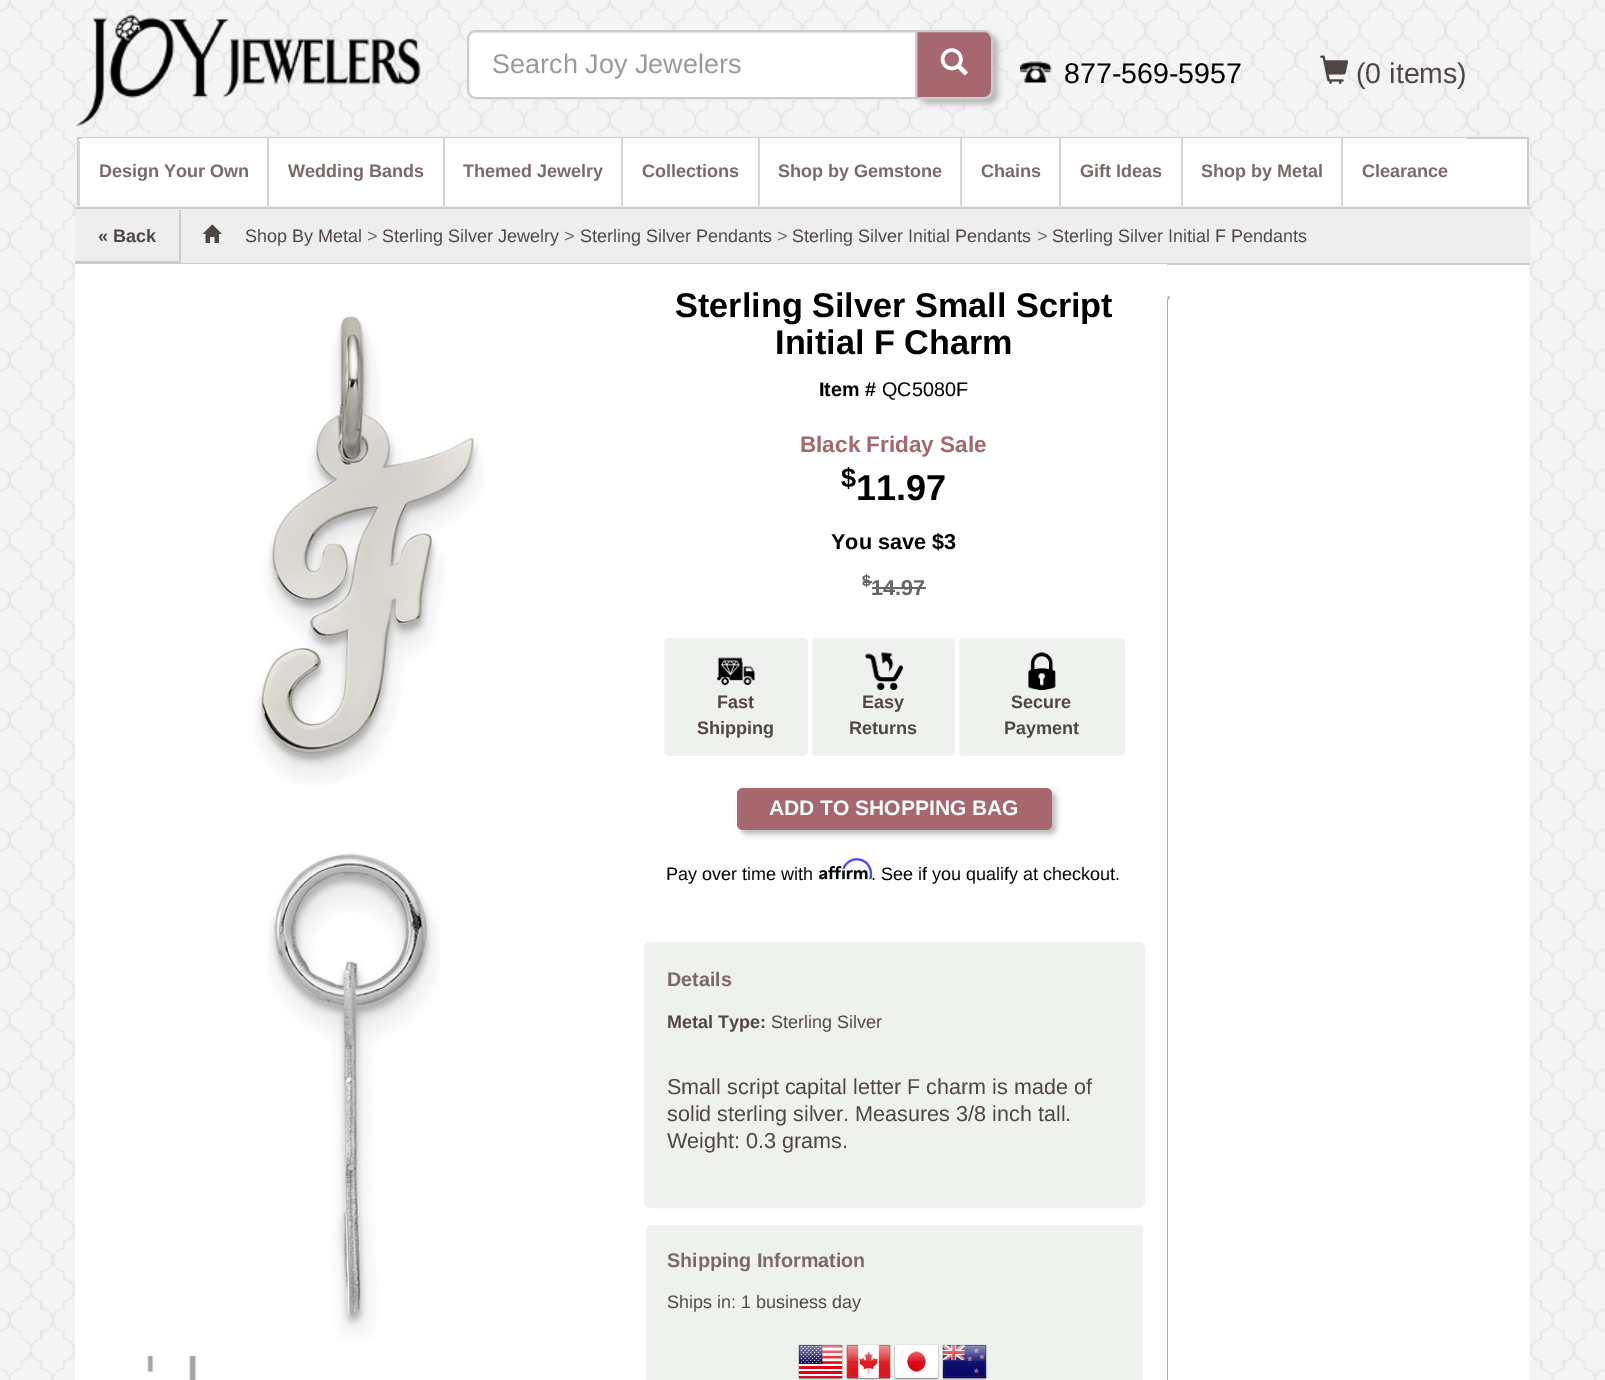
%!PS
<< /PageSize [1605 1380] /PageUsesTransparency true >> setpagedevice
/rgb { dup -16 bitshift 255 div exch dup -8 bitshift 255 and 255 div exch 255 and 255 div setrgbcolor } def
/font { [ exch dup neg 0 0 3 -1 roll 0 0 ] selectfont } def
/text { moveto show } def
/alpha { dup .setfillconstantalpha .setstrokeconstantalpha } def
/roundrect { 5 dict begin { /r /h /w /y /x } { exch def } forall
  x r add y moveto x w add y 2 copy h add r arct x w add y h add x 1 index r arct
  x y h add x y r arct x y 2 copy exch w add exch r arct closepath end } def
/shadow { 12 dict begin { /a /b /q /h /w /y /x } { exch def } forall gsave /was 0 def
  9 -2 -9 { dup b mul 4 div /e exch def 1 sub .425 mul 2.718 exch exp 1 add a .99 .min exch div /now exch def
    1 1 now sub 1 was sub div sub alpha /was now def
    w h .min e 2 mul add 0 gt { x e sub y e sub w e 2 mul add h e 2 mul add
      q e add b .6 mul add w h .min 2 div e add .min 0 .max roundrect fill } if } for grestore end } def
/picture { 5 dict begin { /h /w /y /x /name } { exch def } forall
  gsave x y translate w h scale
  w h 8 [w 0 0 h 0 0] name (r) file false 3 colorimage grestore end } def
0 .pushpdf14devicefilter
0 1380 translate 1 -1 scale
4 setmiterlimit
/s1 { /LiberationSans-Regular 27 font 16#999999 rgb } def
/s2 { /LiberationSans-Regular 28.5 font 16#000000 rgb } def
/s3 { /LiberationSans-Regular 28.5 font 16#4F4545 rgb } def
/s4 { /LiberationSans-Bold 18 font 16#796969 rgb } def
/s5 { /LiberationSans-Bold 18 font 16#4F4545 rgb } def
/s6 { /LiberationSans-Regular 18 font 16#4F4545 rgb } def
/s7 { /LiberationSans-Regular 18 font 16#796969 rgb } def
/s8 { /LiberationSans-Bold 34.25 font 16#000000 rgb } def
/s9 { /LiberationSans-Bold 19.75 font 16#000000 rgb } def
/s10 { /LiberationSans-Regular 19.75 font 16#000000 rgb } def
/s11 { /LiberationSans-Bold 22.5 font 16#A6676F rgb } def
/s12 { /LiberationSans-Bold 27 font 16#000000 rgb } def
/s13 { /LiberationSans-Bold 36 font 16#000000 rgb } def
/s14 { /LiberationSans-Bold 21.6 font 16#000000 rgb } def
/s15 { /LiberationSans-Bold 16 font 16#666666 rgb } def
/s16 { /LiberationSans-Bold 21.6 font 16#666666 rgb } def
/s17 { /LiberationSans-Bold 21 font 16#FFFFFF rgb } def
/s18 { /LiberationSans-Regular 18 font 16#000000 rgb } def
/s19 { /LiberationSans-Bold 19.75 font 16#796969 rgb } def
/s20 { /LiberationSans-Regular 21.6 font 16#4F4545 rgb } def
16#FFFFFF rgb
0 0 1605 1380 rectfill
(pic1.raw) 0 0 1605 1380 picture
(pic2.raw) 75 14 346 113 picture
16#B5B8B6 rgb
920 35 78 69 9 3 1 shadow
16#A6676F rgb
916 31 moveto 984 31 lineto 988.5 31 992 34.5 992 39 curveto 992 90 lineto 992 94.5 988.5 98 984 98 curveto 916 98 lineto closepath gsave fill grestore
16#CCCCCC rgb
2 setlinewidth
stroke
16#FFFFFF rgb
476 30 moveto 917 30 lineto 917 99 lineto 476 99 lineto 471 99 467 95 467 90 curveto 467 39 lineto 467 34 471 30 476 30 curveto closepath fill
16#ECECEC rgb
476 33 moveto 915 33 lineto 915 32 lineto 476 32 lineto 472 32 468 36 468 40 curveto 468 36 471 33 476 33 curveto closepath fill
16#CCCCCC rgb
476 31 moveto 916 31 lineto 916 98 lineto 476 98 lineto 471.5 98 468 94.5 468 90 curveto 468 39 lineto 468 34.5 471.5 31 476 31 curveto closepath stroke
s1
(Search Joy Jewelers) 492 73 text
(pic3.raw) 940 48 28 28 picture
(pic4.raw) 1020 61 32 22 picture
s2
(877-569-5957) 1064 83 text
(pic5.raw) 1320 55 29 29 picture
s3
(\(0 items\)) 1356 83 text
16#EFF1EE rgb
75 135 1455 72 6 roundrect fill
16#FFFFFF rgb
79 139 1448 67 rectfill
16#CCCCCC rgb
77 137 1452 2 rectfill
1527 137 2 69 rectfill
77 137 2 69 rectfill
16#FFFFFF rgb
84 138 moveto 267 138 lineto 267 206 lineto 78 206 lineto 78 144 lineto 78 140.5 80.5 138 84 138 curveto closepath fill
16#D4D8D5 rgb
78 141 2 65 rectfill
s4
(Design Your Own) 99 177 text
16#FFFFFF rgb
269 138 174 1 rectfill
16#D4D8D5 rgb
267 138 2 68 rectfill
s4
(Wedding Bands) 288 177 text
16#FFFFFF rgb
445 138 176 1 rectfill
16#D4D8D5 rgb
443 138 2 68 rectfill
s4
(Themed Jewelry) 463 177 text
16#FFFFFF rgb
623 138 135 1 rectfill
16#D4D8D5 rgb
621 138 2 68 rectfill
s4
(Collections) 642 177 text
16#FFFFFF rgb
760 138 200 1 rectfill
16#D4D8D5 rgb
758 138 2 68 rectfill
s4
(Shop by Gemstone) 778 177 text
16#FFFFFF rgb
962 138 97 1 rectfill
16#D4D8D5 rgb
960 138 2 68 rectfill
s4
(Chains) 981 177 text
16#FFFFFF rgb
1061 138 120 1 rectfill
16#D4D8D5 rgb
1059 138 2 68 rectfill
s4
(Gift Ideas) 1080 177 text
16#FFFFFF rgb
1183 138 158 1 rectfill
16#D4D8D5 rgb
1181 138 2 68 rectfill
s4
(Shop by Metal) 1201 177 text
16#FFFFFF rgb
1343 138 124 1 rectfill
16#D4D8D5 rgb
1341 138 2 68 rectfill
s4
(Clearance) 1362 177 text
16#EEEEEE rgb
75 209 1455 54 rectfill
16#CCCCCC rgb
75 207 1455 2 rectfill
75 263 1455 2 rectfill
179 210 2 53 rectfill
75 261 105 2 rectfill
s5
(« Back) 98 242 text
(pic6.raw) 202 224 20 19 picture
s6
(Shop By Metal) 245 242 text
s7
(>) 367 242 text
s6
(Sterling Silver Jewelry) 382 242 text
s7
(>) 564 242 text
s6
(Sterling Silver Pendants) 580 242 text
s7
(>) 777 242 text
s6
(Sterling Silver Initial Pendants) 792 242 text
s7
(>) 1037 242 text
s6
(Sterling Silver Initial F Pendants) 1052 242 text
16#FFFFFF rgb
1167 265 363 1115 rectfill
75 264 1092 1116 rectfill
(pic7.raw) 254 311 230 474 picture
(pic8.raw) 267 853 173 488 picture
(pic9.raw) 146 1356 51 24 picture
s8
(Sterling Silver Small Script) 675 317 text
(Initial F Charm) 775 354 text
s9
(Item #) 819 396 text
s10
(QC5080F) 882 396 text
s11
(Black Friday Sale) 800 452 text
s12
($) 841 487 text
s13
(11.97) 856 500 text
s14
(You save $3) 831 549 text
s15
($) 862 586 text
863 581 9 2 rectfill
s16
(14.97) 871 595 text
872 587 54 2 rectfill
16#EFF1EE rgb
663 637 146 120 5 roundrect gsave fill grestore
16#FFFFFF rgb
stroke
(pic10.raw) 717 657 38 29 picture
s5
(Fast) 717 708 text
(Shipping) 697 734 text
16#EFF1EE rgb
811 637 145 120 5 roundrect gsave fill grestore
16#FFFFFF rgb
stroke
(pic11.raw) 865 652 38 38 picture
s5
(Easy) 862 708 text
(Returns) 849 734 text
16#EFF1EE rgb
958 637 168 120 5 roundrect gsave fill grestore
16#FFFFFF rgb
stroke
(pic12.raw) 1028 652 28 38 picture
s5
(Secure) 1011 708 text
(Payment) 1004 734 text
16#B5B8B6 rgb
741 792 315 42 6 3 1 shadow
16#A6676F rgb
737 788 315 42 6 roundrect fill
s17
(ADD TO SHOPPING BAG) 769 815 text
s18
(Pay over time with) 666 880 text
(pic14.raw) 819 866 49 14 picture
(pic13.raw) 842 858 31 22 picture
(. See if you qualify at checkout.) 871 880 text
16#EFF1EE rgb
645 943 499 264 5 roundrect gsave fill grestore
stroke
s19
(Details) 667 986 text
s5
(Metal Type:) 667 1028 text
s6
(Sterling Silver) 771 1028 text
s20
(Small script capital letter F charm is made of) 667 1094 text
(solid sterling silver. Measures 3/8 inch tall.) 667 1121 text
(Weight: 0.3 grams.) 667 1148 text
16#EFF1EE rgb
645 1224 499 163 5 roundrect gsave fill grestore
16#FFFFFF rgb
stroke
s19
(Shipping Information) 667 1267 text
s6
(Ships in: 1 business day) 667 1308 text
(pic15.raw) 798 1344 45 36 picture
(pic16.raw) 846 1344 45 36 picture
(pic17.raw) 894 1344 45 36 picture
(pic18.raw) 942 1344 45 36 picture
16#AAAAAA rgb
1167 302 moveto 1167 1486 lineto 1167 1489 1168 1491 1169 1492 curveto 1170 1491 lineto 1169 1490 1168 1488 1168 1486 curveto 1168 300 lineto 1170 297 lineto 1169 296 lineto 1168 297 1167 299 1167 302 curveto closepath fill
.poppdf14devicefilter showpage
